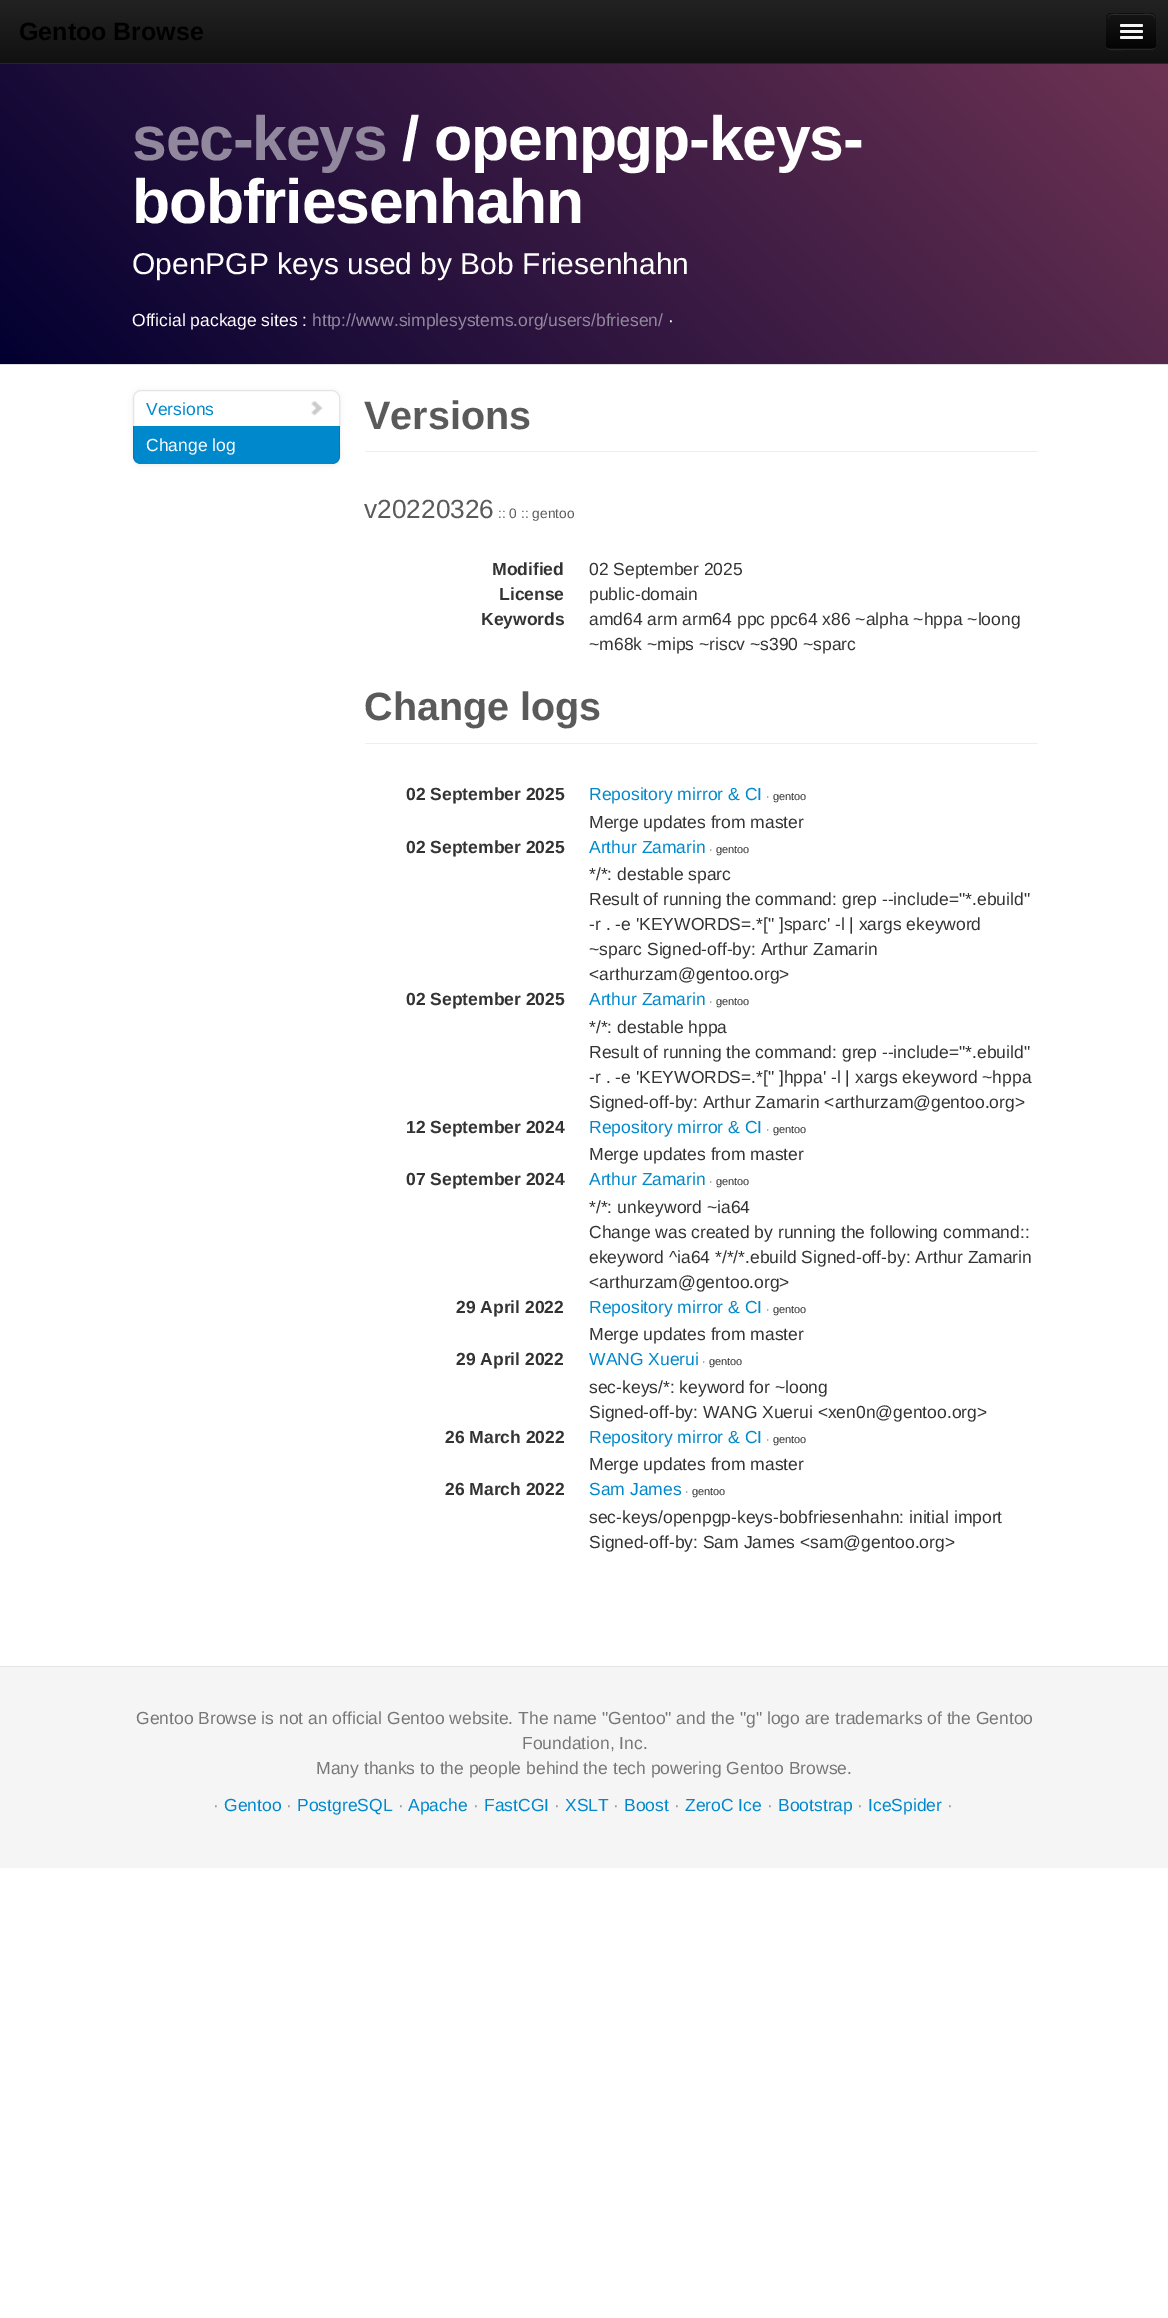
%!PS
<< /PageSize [1168 2318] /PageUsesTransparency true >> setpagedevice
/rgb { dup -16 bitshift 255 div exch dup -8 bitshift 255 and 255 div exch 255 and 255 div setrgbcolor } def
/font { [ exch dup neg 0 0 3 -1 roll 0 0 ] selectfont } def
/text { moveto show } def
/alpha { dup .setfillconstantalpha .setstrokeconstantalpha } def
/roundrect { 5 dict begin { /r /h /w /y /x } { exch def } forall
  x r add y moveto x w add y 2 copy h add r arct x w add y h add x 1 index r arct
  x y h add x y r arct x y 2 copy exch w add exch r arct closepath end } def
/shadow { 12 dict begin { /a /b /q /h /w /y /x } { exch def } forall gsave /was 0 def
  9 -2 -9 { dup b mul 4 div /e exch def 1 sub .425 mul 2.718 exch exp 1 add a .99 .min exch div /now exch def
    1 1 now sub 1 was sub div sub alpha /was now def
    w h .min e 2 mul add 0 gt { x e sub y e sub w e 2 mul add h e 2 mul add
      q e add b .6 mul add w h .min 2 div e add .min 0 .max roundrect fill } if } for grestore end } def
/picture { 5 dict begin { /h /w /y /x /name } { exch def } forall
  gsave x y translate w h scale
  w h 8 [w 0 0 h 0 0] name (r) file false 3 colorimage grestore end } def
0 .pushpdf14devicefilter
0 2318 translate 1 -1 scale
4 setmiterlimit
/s1 { /LiberationSans-Bold 25 font 16#000000 rgb } def
/s2 { /LiberationSans-Regular 30 font 16#FFFFFF rgb } def
/s3 { /LiberationSans-Regular 17.5 font 16#FFFFFF rgb } def
/s4 { /LiberationSans-Regular 17.5 font 16#92889E rgb } def
/s5 { /LiberationSans-Regular 17.5 font 16#0088CC rgb } def
/s6 { /LiberationSans-Bold 39.5 font 16#5A5A5A rgb } def
/s7 { /LiberationSans-Regular 26.25 font 16#5A5A5A rgb } def
/s8 { /LiberationSans-Regular 13.75 font 16#5A5A5A rgb } def
/s9 { /LiberationSans-Bold 17.5 font 16#333333 rgb } def
/s10 { /LiberationSans-Regular 17.5 font 16#333333 rgb } def
/s11 { /LiberationSans-Regular 11 font 16#333333 rgb } def
/s12 { /LiberationSans-Regular 17.5 font 16#777777 rgb } def
/s13 { /LiberationSans-Regular 17.5 font 16#999999 rgb } def
16#FFFFFF rgb
0 0 1168 2318 rectfill
gsave 0 0 moveto 1168 0 lineto 1168 63 lineto 0 63 lineto closepath clip newpath
<< /ShadingType 2 /ColorSpace /DeviceRGB /Coords [584 0 584 63] /Extend [true true] /Function << /FunctionType 2 /Domain [0 1] /C0 [0.133 0.133 0.133] /C1 [0.067 0.067 0.067] /N 1 >> >> shfill grestore
16#252525 rgb
0 63 1168 1 rectfill
s1
(Gentoo Browse) 19 40 text
16#272727 rgb
1106 17 moveto 1106 36 lineto 1106 53 1107 50 1124 50 curveto 1151 50 lineto 1154 50 1156 48 1156 45 curveto 1155 47 1153 49 1151 49 curveto 1111 49 lineto 1108 49 1106 47 1106 44 curveto closepath fill
16#0E0E0E rgb
1106 13 50 36 5 roundrect fill
gsave
1106 13 50 36 5 roundrect clip newpath
gsave 1106 14 moveto 1156 14 lineto 1156 48 lineto 1106 48 lineto closepath clip newpath
<< /ShadingType 2 /ColorSpace /DeviceRGB /Coords [1131 14 1131 48] /Extend [true true] /Function << /FunctionType 2 /Domain [0 1] /C0 [0.082 0.082 0.082] /C1 [0.016 0.016 0.016] /N 1 >> >> shfill grestore
grestore
16#2C2C2C rgb
1111 15 moveto 1151 15 lineto 1153 15 1155 17 1155 19 curveto 1155 13 1149 14 1144 14 curveto 1118 14 lineto 1114 14 1108 13 1108 19 curveto 1108 17 1109 15 1111 15 curveto closepath fill
16#0B0B0B rgb
1120 25.5 moveto 1118.5 28.5 1124.5 28 1125 28 curveto 1138 28 lineto 1139 28 1142.5 29 1143 27 curveto 1143 26.5 1143 25.5 1142.5 25.5 curveto 1141.5 26 lineto 1121 26 lineto closepath fill
16#F5F5F5 rgb
1120 24 23 3 1.5 roundrect fill
16#080808 rgb
1120 32 moveto 1119 34.5 1124 34 1125 34 curveto 1138 34 lineto 1139 34 1142.5 35 1143 33 curveto 1143 32.5 1143 31.5 1142.5 31.5 curveto 1142.5 32 1142 32.5 1141 32.5 curveto 1121 32.5 lineto 1121 32.5 1120.5 32 1120 32 curveto closepath fill
16#F5F5F5 rgb
1120 30 23 3 1.5 roundrect fill
1120 36 23 3 1.5 roundrect fill
gsave 0 64 moveto 1168 64 lineto 1168 364 lineto 0 364 lineto closepath clip newpath
<< /ShadingType 2 /ColorSpace /DeviceRGB /Coords [217 581 952 -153] /Extend [true true] /Function << /FunctionType 2 /Domain [0 1] /C0 [0.008 0 0.192] /C1 [0.427 0.2 0.325] /N 1 >> >> shfill grestore
16#DDDDDD rgb
0 364 1168 1 rectfill
/LiberationSans-Bold 62.5 font
16#92889E rgb
132 160 moveto -1.25 0 (sec-keys) ashow
16#FFFFFF rgb
402 160 moveto -1.25 0 (/ openpgp-keys-) ashow
132 223 moveto -1.25 0 (bobfriesenhahn) ashow
s2
(OpenPGP keys used by Bob Friesenhahn) 132 274 text
s3
(Official package sites :) 132 326 text
s4
(http://www.simplesystems.org/users/bfriesen/) 312 326 text
s3
(·) 668 326 text
16#000000 rgb
133 391 207 74 8 2.5 0.07 shadow
16#FFFFFF rgb
133 390 207 74 8 roundrect fill
16#E5E5E5 rgb
141 390.5 moveto 332 390.5 lineto 336 390.5 339.5 394 339.5 398 curveto 339.5 427.5 lineto 133.5 427.5 lineto 133.5 398 lineto 133.5 394 137 390.5 141 390.5 curveto closepath stroke
s5
(Versions) 146 415 text
(pic1.raw) 311 401 12 15 picture
133 426 moveto 340 426 lineto 340 456 lineto 340 460.5 336.5 464 332 464 curveto 141 464 lineto 136.5 464 133 460.5 133 456 curveto closepath fill
0.1 alpha
16#000000 rgb
331 464 moveto 342 464 340 454 340 446 curveto 340 426 lineto 339 426 lineto 339 456 lineto 339 460 335 464 331 464 curveto closepath fill
133 426 moveto 133 456 lineto 133 460.5 136.5 464 141 464 curveto 137 464 134 460 134 456 curveto 134 426 lineto closepath fill
1 alpha
s3
(Change log) 146 451 text
16#EEEEEE rgb
365 451 673 1 rectfill
s6
(Versions) 364 429 text
s7
(v20220326) 364 518 text
s8
(:: 0 :: gentoo) 498 518 text
s9
(Modified) 492 575 text
s10
(02 September 2025) 589 575 text
s9
(License) 499 600 text
s10
(public-domain) 589 600 text
s9
(Keywords) 481 625 text
s10
(amd64 arm arm64 ppc ppc64 x86 ~alpha ~hppa ~loong) 589 625 text
(~m68k ~mips ~riscv ~s390 ~sparc) 589 650 text
16#EEEEEE rgb
365 743 673 1 rectfill
s6
(Change logs) 364 720 text
s9
(02 September 2025) 406 800 text
s5
(Repository mirror & CI) 589 800 text
s11
(· gentoo) 766 800 text
s10
(Merge updates from master) 589 828 text
s9
(02 September 2025) 406 853 text
s5
(Arthur Zamarin) 589 853 text
s11
(· gentoo) 709 853 text
s10
(*/*: destable sparc) 589 880 text
(Result of running the command: grep --include="*.ebuild") 589 905 text
(-r . -e 'KEYWORDS=.*[" ]sparc' -l | xargs ekeyword) 589 930 text
(~sparc Signed-off-by: Arthur Zamarin) 589 955 text
(<arthurzam@gentoo.org>) 589 980 text
s9
(02 September 2025) 406 1005 text
s5
(Arthur Zamarin) 589 1005 text
s11
(· gentoo) 709 1005 text
s10
(*/*: destable hppa) 589 1033 text
(Result of running the command: grep --include="*.ebuild") 589 1058 text
(-r . -e 'KEYWORDS=.*[" ]hppa' -l | xargs ekeyword ~hppa) 589 1083 text
(Signed-off-by: Arthur Zamarin <arthurzam@gentoo.org>) 589 1108 text
s9
(12 September 2024) 406 1133 text
s5
(Repository mirror & CI) 589 1133 text
s11
(· gentoo) 766 1133 text
s10
(Merge updates from master) 589 1160 text
s9
(07 September 2024) 406 1185 text
s5
(Arthur Zamarin) 589 1185 text
s11
(· gentoo) 709 1185 text
s10
(*/*: unkeyword ~ia64) 589 1213 text
(Change was created by running the following command::) 589 1238 text
(ekeyword ^ia64 */*/*.ebuild Signed-off-by: Arthur Zamarin) 589 1263 text
(<arthurzam@gentoo.org>) 589 1288 text
s9
(29 April 2022) 456 1313 text
s5
(Repository mirror & CI) 589 1313 text
s11
(· gentoo) 766 1313 text
s10
(Merge updates from master) 589 1340 text
s9
(29 April 2022) 456 1365 text
s5
(WANG Xuerui) 589 1365 text
s11
(· gentoo) 702 1365 text
s10
(sec-keys/*: keyword for ~loong) 589 1393 text
(Signed-off-by: WANG Xuerui <xen0n@gentoo.org>) 589 1418 text
s9
(26 March 2022) 445 1443 text
s5
(Repository mirror & CI) 589 1443 text
s11
(· gentoo) 766 1443 text
s10
(Merge updates from master) 589 1470 text
s9
(26 March 2022) 445 1495 text
s5
(Sam James) 589 1495 text
s11
(· gentoo) 685 1495 text
s10
(sec-keys/openpgp-keys-bobfriesenhahn: initial import) 589 1523 text
(Signed-off-by: Sam James <sam@gentoo.org>) 589 1548 text
16#F5F5F5 rgb
0 1667 1168 201 rectfill
16#E5E5E5 rgb
0 1666 1168 1 rectfill
s12
(Gentoo Browse is not an official Gentoo website. The name "Gentoo" and the "g" logo are trademarks of the Gentoo) 136 1724 text
(Foundation, Inc.) 522 1749 text
(Many thanks to the people behind the tech powering Gentoo Browse.) 316 1774 text
s13
(·) 213 1811 text
s5
(Gentoo) 224 1811 text
s13
(·) 286 1811 text
s5
(PostgreSQL) 297 1811 text
s13
(·) 398 1811 text
s5
(Apache) 408 1811 text
s13
(·) 473 1811 text
s5
(FastCGI) 484 1811 text
s13
(·) 554 1811 text
s5
(XSLT) 565 1811 text
s13
(·) 613 1811 text
s5
(Boost) 624 1811 text
s13
(·) 674 1811 text
s5
(ZeroC Ice) 685 1811 text
s13
(·) 767 1811 text
s5
(Bootstrap) 778 1811 text
s13
(·) 857 1811 text
s5
(IceSpider) 868 1811 text
s13
(·) 947 1811 text
.poppdf14devicefilter showpage
